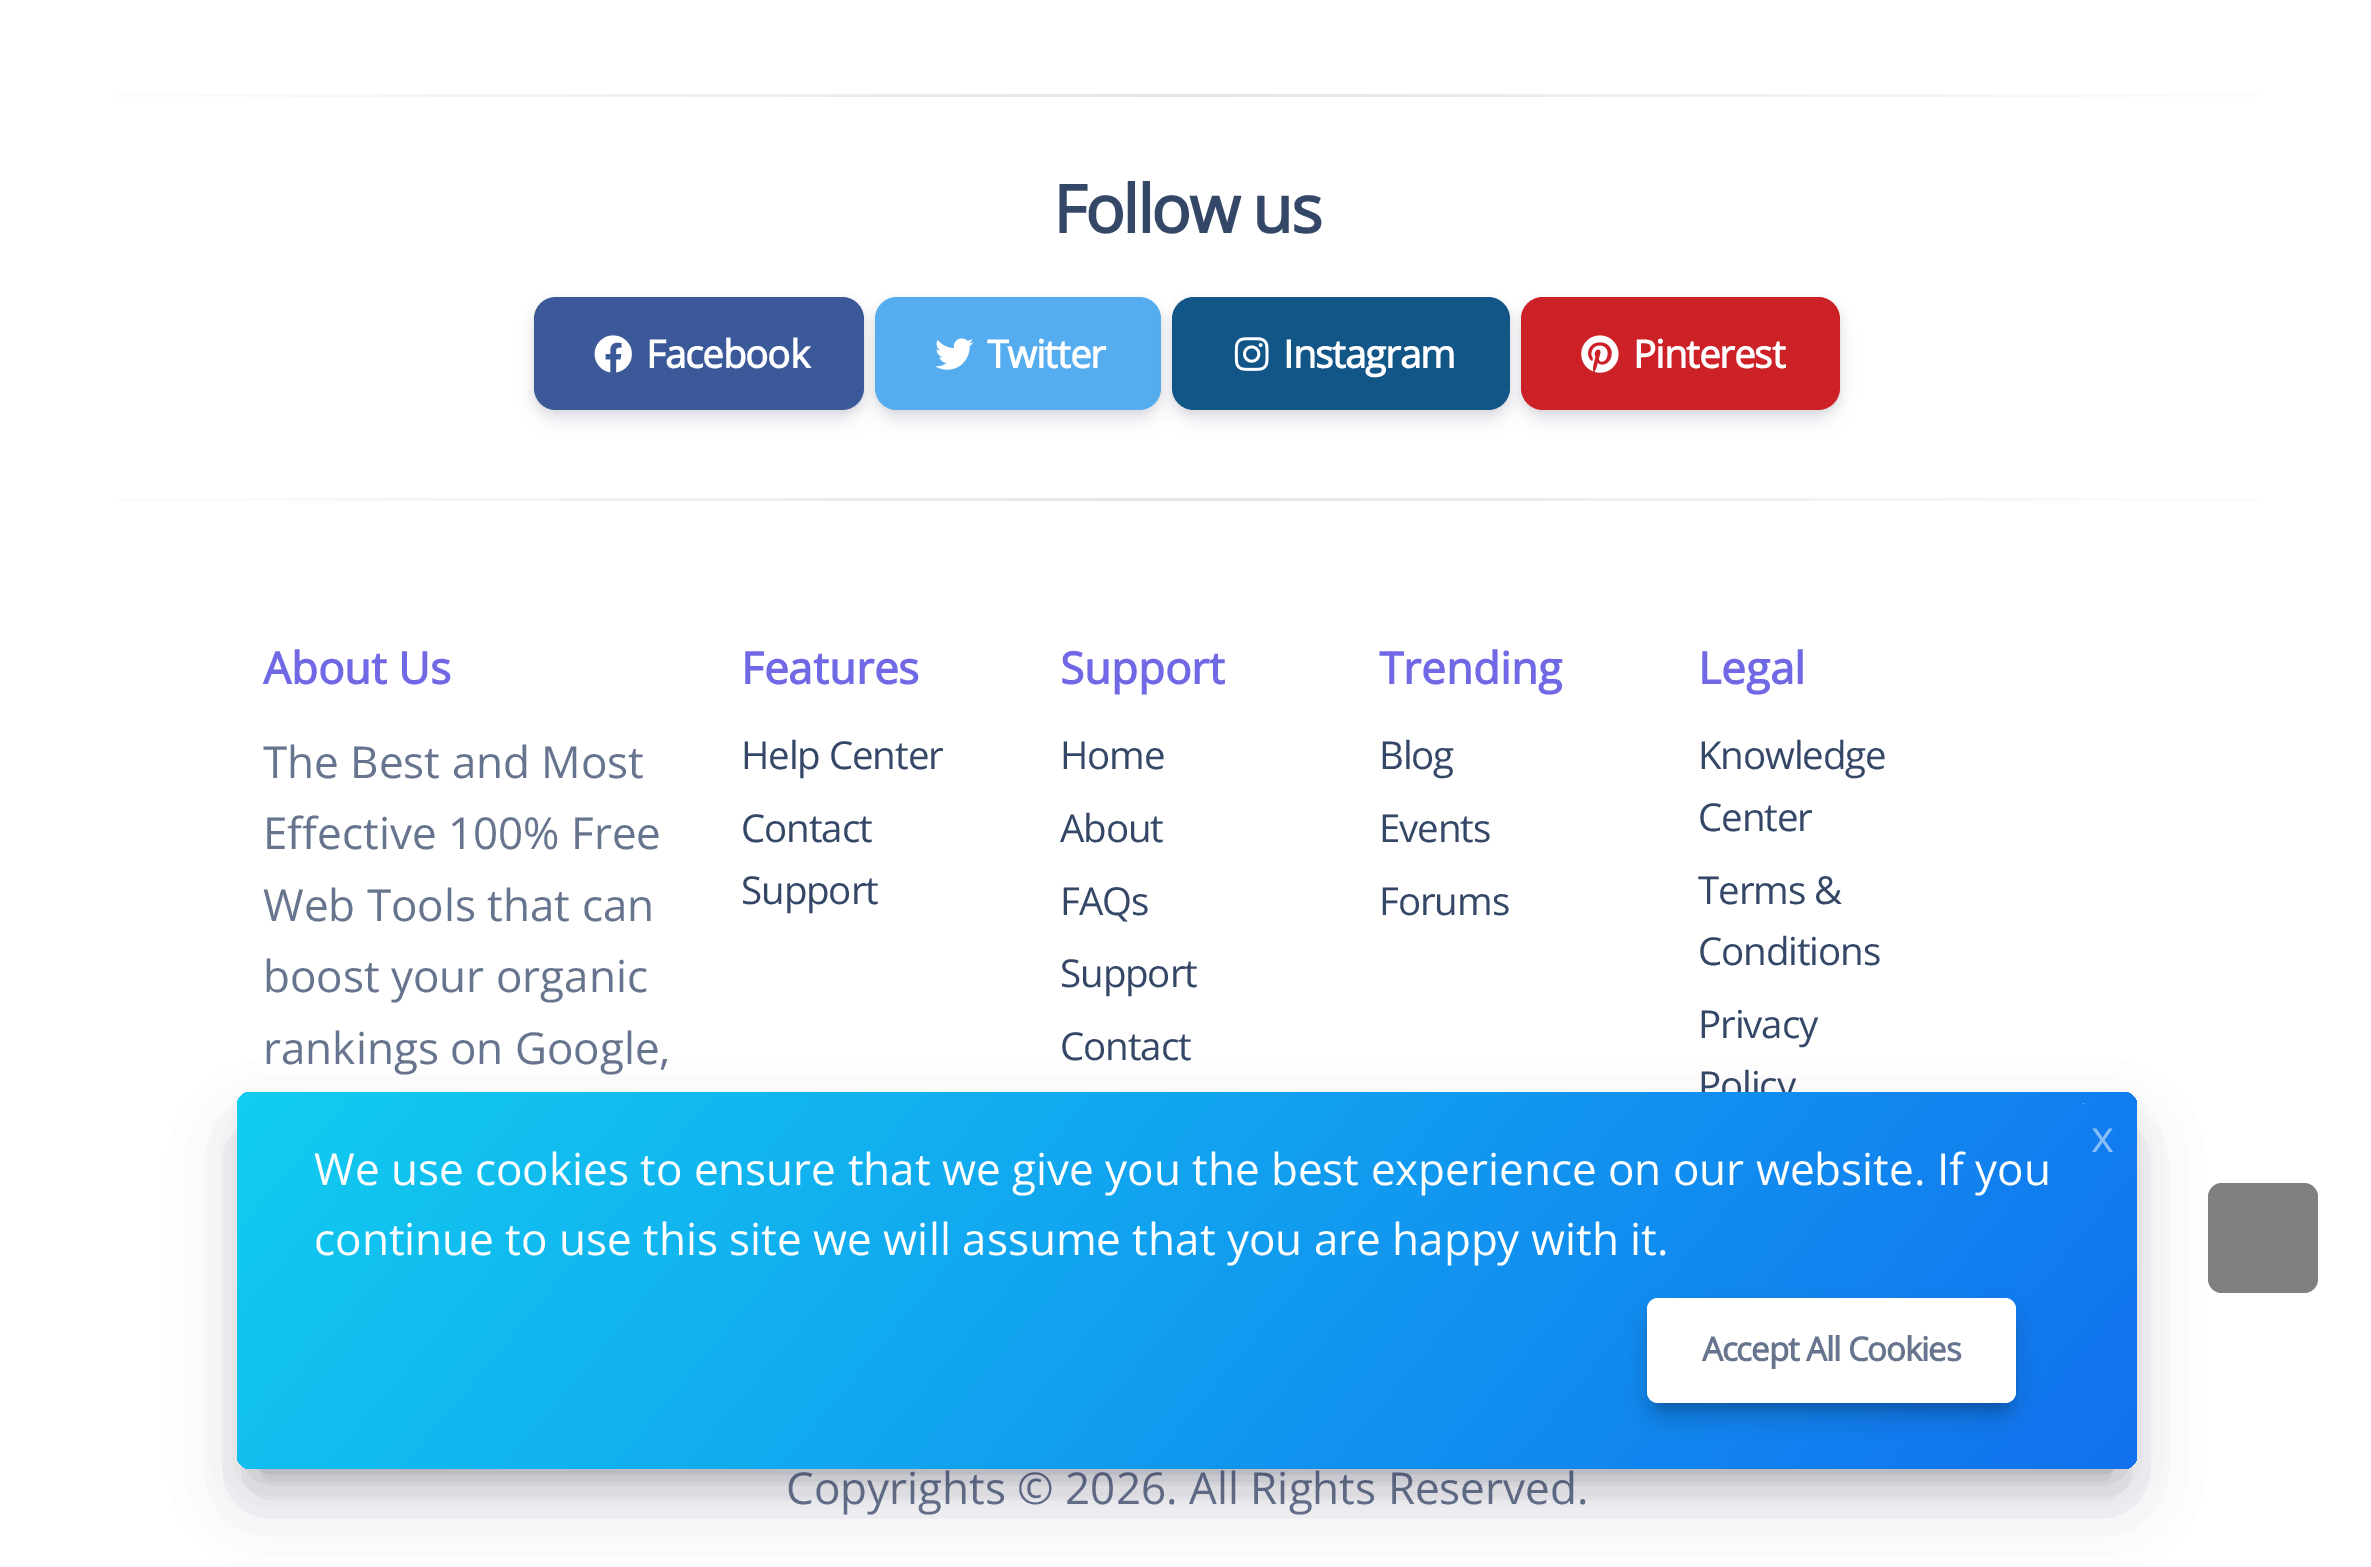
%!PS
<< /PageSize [2371 1567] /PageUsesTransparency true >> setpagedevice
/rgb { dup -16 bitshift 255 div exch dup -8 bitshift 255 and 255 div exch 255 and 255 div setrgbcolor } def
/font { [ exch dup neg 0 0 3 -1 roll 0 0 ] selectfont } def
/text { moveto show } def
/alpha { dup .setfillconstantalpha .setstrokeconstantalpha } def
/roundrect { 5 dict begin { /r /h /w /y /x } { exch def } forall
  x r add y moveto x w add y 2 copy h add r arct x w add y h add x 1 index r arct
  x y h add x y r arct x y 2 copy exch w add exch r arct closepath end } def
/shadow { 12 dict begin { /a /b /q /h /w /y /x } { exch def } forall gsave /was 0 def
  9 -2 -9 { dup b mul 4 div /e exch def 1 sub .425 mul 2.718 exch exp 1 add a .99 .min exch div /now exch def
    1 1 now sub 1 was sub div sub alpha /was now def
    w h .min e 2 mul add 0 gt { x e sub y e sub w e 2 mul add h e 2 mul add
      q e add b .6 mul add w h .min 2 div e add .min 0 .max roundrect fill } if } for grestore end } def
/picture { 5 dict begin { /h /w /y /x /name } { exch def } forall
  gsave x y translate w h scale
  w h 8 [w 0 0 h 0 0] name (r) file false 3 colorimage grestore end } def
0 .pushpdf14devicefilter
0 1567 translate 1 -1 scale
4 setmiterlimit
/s1 { /OpenSans-Bold 44 font 16#7068E4 rgb } def
/s2 { /OpenSans-Regular 44 font 16#67748E rgb } def
/s3 { /OpenSans-Regular 44 font 16#88BEF7 rgb } def
/s4 { /OpenSans-Regular 44 font 16#FFFFFF rgb } def
16#FFFFFF rgb
0 0 2371 1567 rectfill
gsave 114 94 moveto 2259 94 lineto 2259 97 lineto 114 97 lineto closepath clip newpath
<< /ShadingType 2 /ColorSpace /DeviceRGB /Coords [0 95 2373 95] /Extend [true true] /Function << /FunctionType 3 /Domain [0 1] /Functions [<< /FunctionType 2 /Domain [0 1] /C0 [1 1 1] /C1 [0.898 0.898 0.898] /N 1 >> << /FunctionType 2 /Domain [0 1] /C0 [0.898 0.898 0.898] /C1 [1 1 1] /N 1 >>] /Bounds [0.5] /Encode [0 1 0 1] >> >> shfill grestore
/OpenSans-Bold 66 font
16#344767 rgb
1053 233 moveto -2.25 0 (Follow us) ashow
16#000000 rgb
534 300 330 113 22 4 0.08 shadow
16#32325D rgb
534 308 330 113 22 8 0.1 shadow
16#3B5998 rgb
534 297 330 113 22 roundrect fill
(pic1.raw) 594 335 38 38 picture
/OpenSans-Bold 38.5 font
16#FFFFFF rgb
646 368 moveto -1.1 0 (Facebook) ashow
16#000000 rgb
875 300 286 113 22 4 0.08 shadow
16#32325D rgb
875 308 286 113 22 8 0.1 shadow
16#55ACEE rgb
875 297 286 113 22 roundrect fill
(pic2.raw) 935 338 39 32 picture
16#FFFFFF rgb
987 368 moveto -1.1 0 (Twitter) ashow
16#000000 rgb
1172 300 338 113 22 4 0.08 shadow
16#32325D rgb
1172 308 338 113 22 8 0.1 shadow
16#125688 rgb
1172 297 338 113 22 roundrect fill
(pic3.raw) 1234 337 35 34 picture
16#FFFFFF rgb
1283 368 moveto -1.1 0 (Instagram) ashow
16#000000 rgb
1521 300 319 113 22 4 0.08 shadow
16#32325D rgb
1521 308 319 113 22 8 0.1 shadow
16#CC2127 rgb
1521 297 319 113 22 roundrect fill
(pic4.raw) 1581 335 38 38 picture
16#FFFFFF rgb
1633 368 moveto -1.1 0 (Pinterest) ashow
gsave 114 498 moveto 2259 498 lineto 2259 501 lineto 114 501 lineto closepath clip newpath
<< /ShadingType 2 /ColorSpace /DeviceRGB /Coords [0 499 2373 499] /Extend [true true] /Function << /FunctionType 3 /Domain [0 1] /Functions [<< /FunctionType 2 /Domain [0 1] /C0 [1 1 1] /C1 [0.898 0.898 0.898] /N 1 >> << /FunctionType 2 /Domain [0 1] /C0 [0.898 0.898 0.898] /C1 [1 1 1] /N 1 >>] /Bounds [0.5] /Encode [0 1 0 1] >> >> shfill grestore
s1
(About Us) 263 684 text
s2
(The Best and Most) 263 778 text
(Effective 100% Free) 263 849 text
(Web Tools that can) 263 921 text
(boost your organic) 263 992 text
(rankings on Google,) 263 1064 text
s1
(Features) 741 684 text
/OpenSans-Regular 38.5 font
16#344767 rgb
741 769 moveto -1.1 0 (Help Center) ashow
741 842 moveto -1.1 0 (Contact) ashow
741 904 moveto -1.1 0 (Support) ashow
s1
(Support) 1060 684 text
/OpenSans-Regular 38.5 font
16#344767 rgb
1060 769 moveto -1.1 0 (Home) ashow
1060 842 moveto -1.1 0 (About) ashow
1060 915 moveto -1.1 0 (FAQs) ashow
1060 987 moveto -1.1 0 (Support) ashow
1060 1060 moveto -1.1 0 (Contact) ashow
s1
(Trending) 1379 684 text
/OpenSans-Regular 38.5 font
16#344767 rgb
1379 769 moveto -1.1 0 (Blog) ashow
1379 842 moveto -1.1 0 (Events) ashow
1379 915 moveto -1.1 0 (Forums) ashow
s1
(Legal) 1698 684 text
/OpenSans-Regular 38.5 font
16#344767 rgb
1698 769 moveto -1.1 0 (Knowledge) ashow
1698 831 moveto -1.1 0 (Center) ashow
1698 904 moveto -1.1 0 (Terms &) ashow
1698 965 moveto -1.1 0 (Conditions) ashow
1698 1038 moveto -1.1 0 (Privacy) ashow
1698 1099 moveto -1.1 0 (Policy) ashow
s2
(Copyrights © 2026. All Rights Reserved.) 786 1504 text
16#000000 rgb
259 1136 1856 333 0 22 0.3 shadow
16#808080 rgb
2208 1183 110 110 14 roundrect fill
16#32325D rgb
250 1141 1873 350 0 37 0.25 shadow
gsave 237 1092 1900 377 14 roundrect clip newpath
<< /ShadingType 2 /ColorSpace /DeviceRGB /Coords [1837 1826 536 734] /Extend [true true] /Function << /FunctionType 2 /Domain [0 1] /C0 [0.067 0.443 0.937] /C1 [0.067 0.804 0.937] /N 1 >> >> shfill grestore
(pic5.raw) 2082 1103 3 1 picture
s3
(x) 2091 1152 text
s4
(We use cookies to ensure that we give you the best experience on our website. If you) 314 1185 text
(continue to use this site we will assume that you are happy with it.) 314 1255 text
16#000000 rgb
1661 1328 341 77 0 14 0.25 shadow
1656 1320 352 88 3 14 0.23 shadow
16#FFFFFF rgb
1647 1298 369 105 11 roundrect fill
/OpenSans-Bold 33 font
16#67748E rgb
1702 1361 moveto -1.1 0 (Accept All Cookies) ashow
.poppdf14devicefilter showpage
